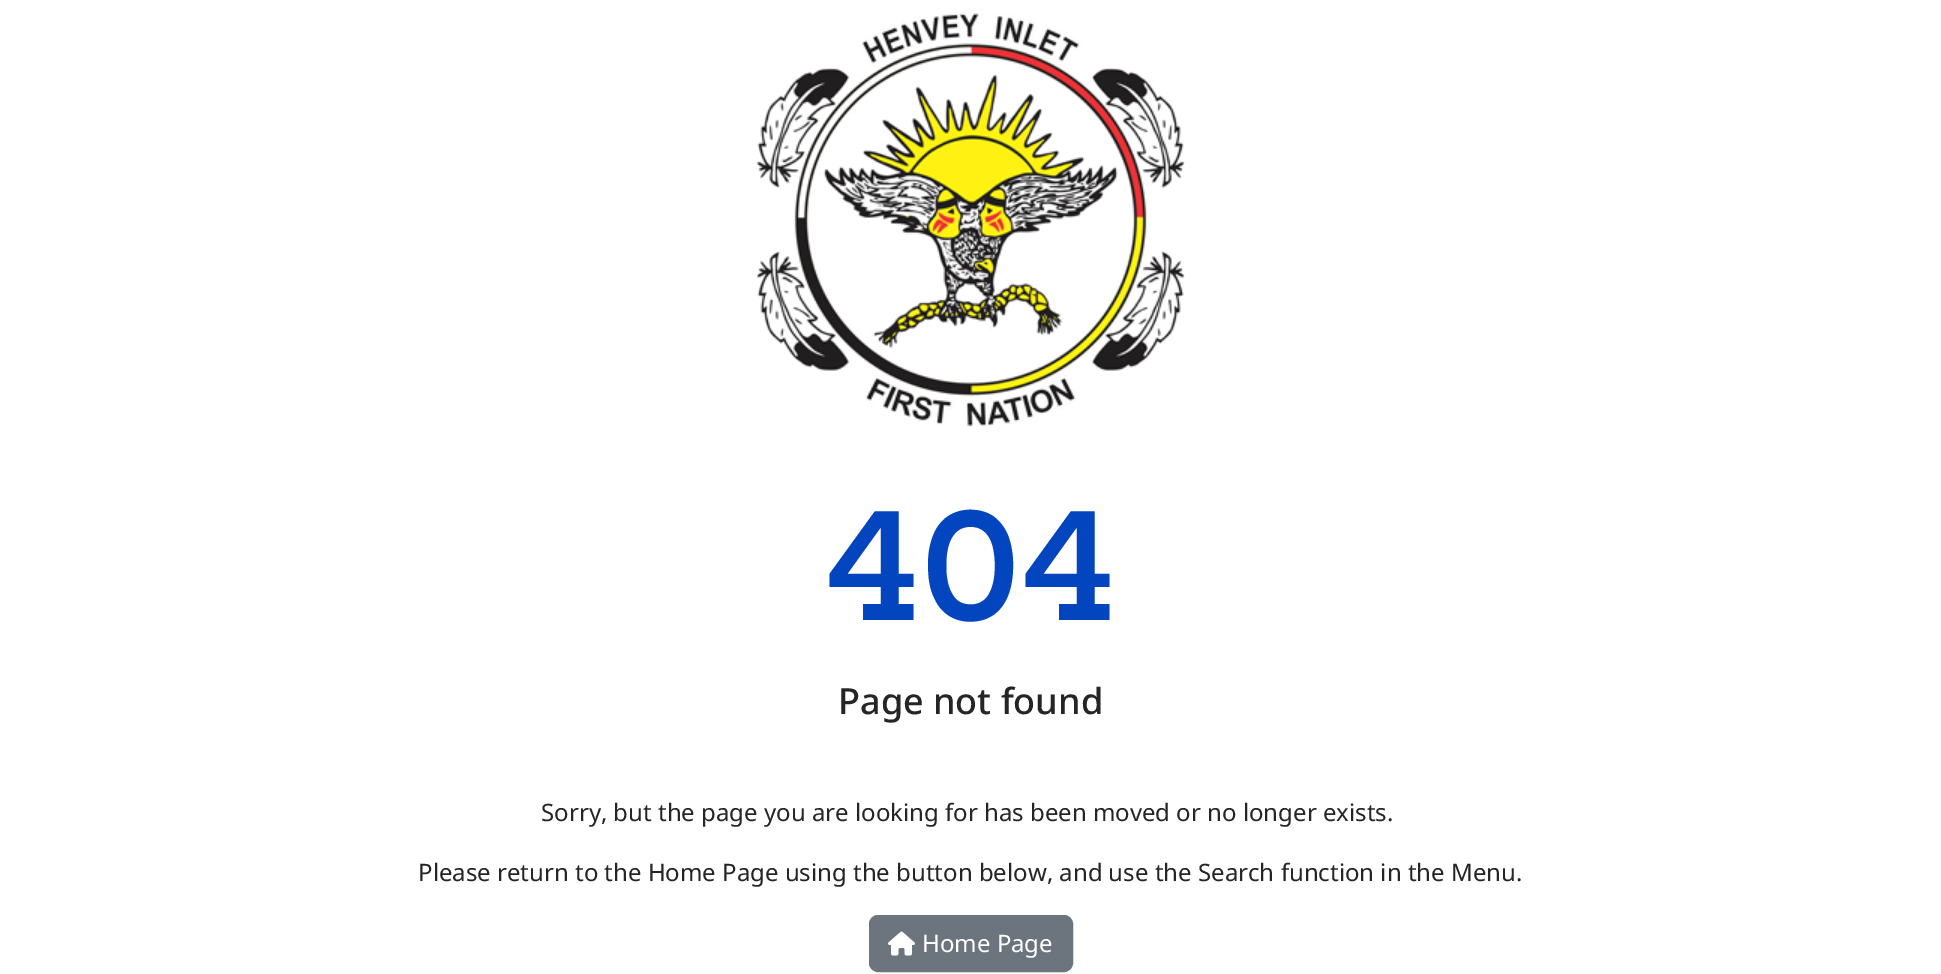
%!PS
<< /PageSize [1941 974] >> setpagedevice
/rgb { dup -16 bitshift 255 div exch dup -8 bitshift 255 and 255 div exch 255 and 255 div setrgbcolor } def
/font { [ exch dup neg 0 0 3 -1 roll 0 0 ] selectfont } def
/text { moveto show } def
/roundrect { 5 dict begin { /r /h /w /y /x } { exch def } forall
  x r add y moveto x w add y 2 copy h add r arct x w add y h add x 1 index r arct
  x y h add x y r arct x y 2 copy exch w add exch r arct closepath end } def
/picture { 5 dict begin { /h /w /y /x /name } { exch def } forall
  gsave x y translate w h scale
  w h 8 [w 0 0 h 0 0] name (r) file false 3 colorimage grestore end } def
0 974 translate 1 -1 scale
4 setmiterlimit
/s1 { /HeptaSlab-SemiBold 144 font 16#0345BF rgb } def
/s2 { /NotoSans-Medium 36 font 16#252525 rgb } def
/s3 { /NotoSans-Regular 24 font 16#252525 rgb } def
/s4 { /NotoSans-Regular 24 font 16#FFFFFF rgb } def
16#FFFFFF rgb
0 0 1941 974 rectfill
(pic1.raw) 756 13 429 414 picture
s1
(404) 825 620 text
s2
(Page not found) 838 714 text
s3
(Sorry, but the page you are looking for has been moved or no longer exists.) 541 821 text
(Please return to the Home Page using the button below, and use the Search function in the Menu.) 418 881 text
16#6C757D rgb
870 916 202 55 8 roundrect gsave fill grestore
2 setlinewidth
stroke
(pic2.raw) 888 931 27 25 picture
s4
(Home Page) 922 952 text
showpage
